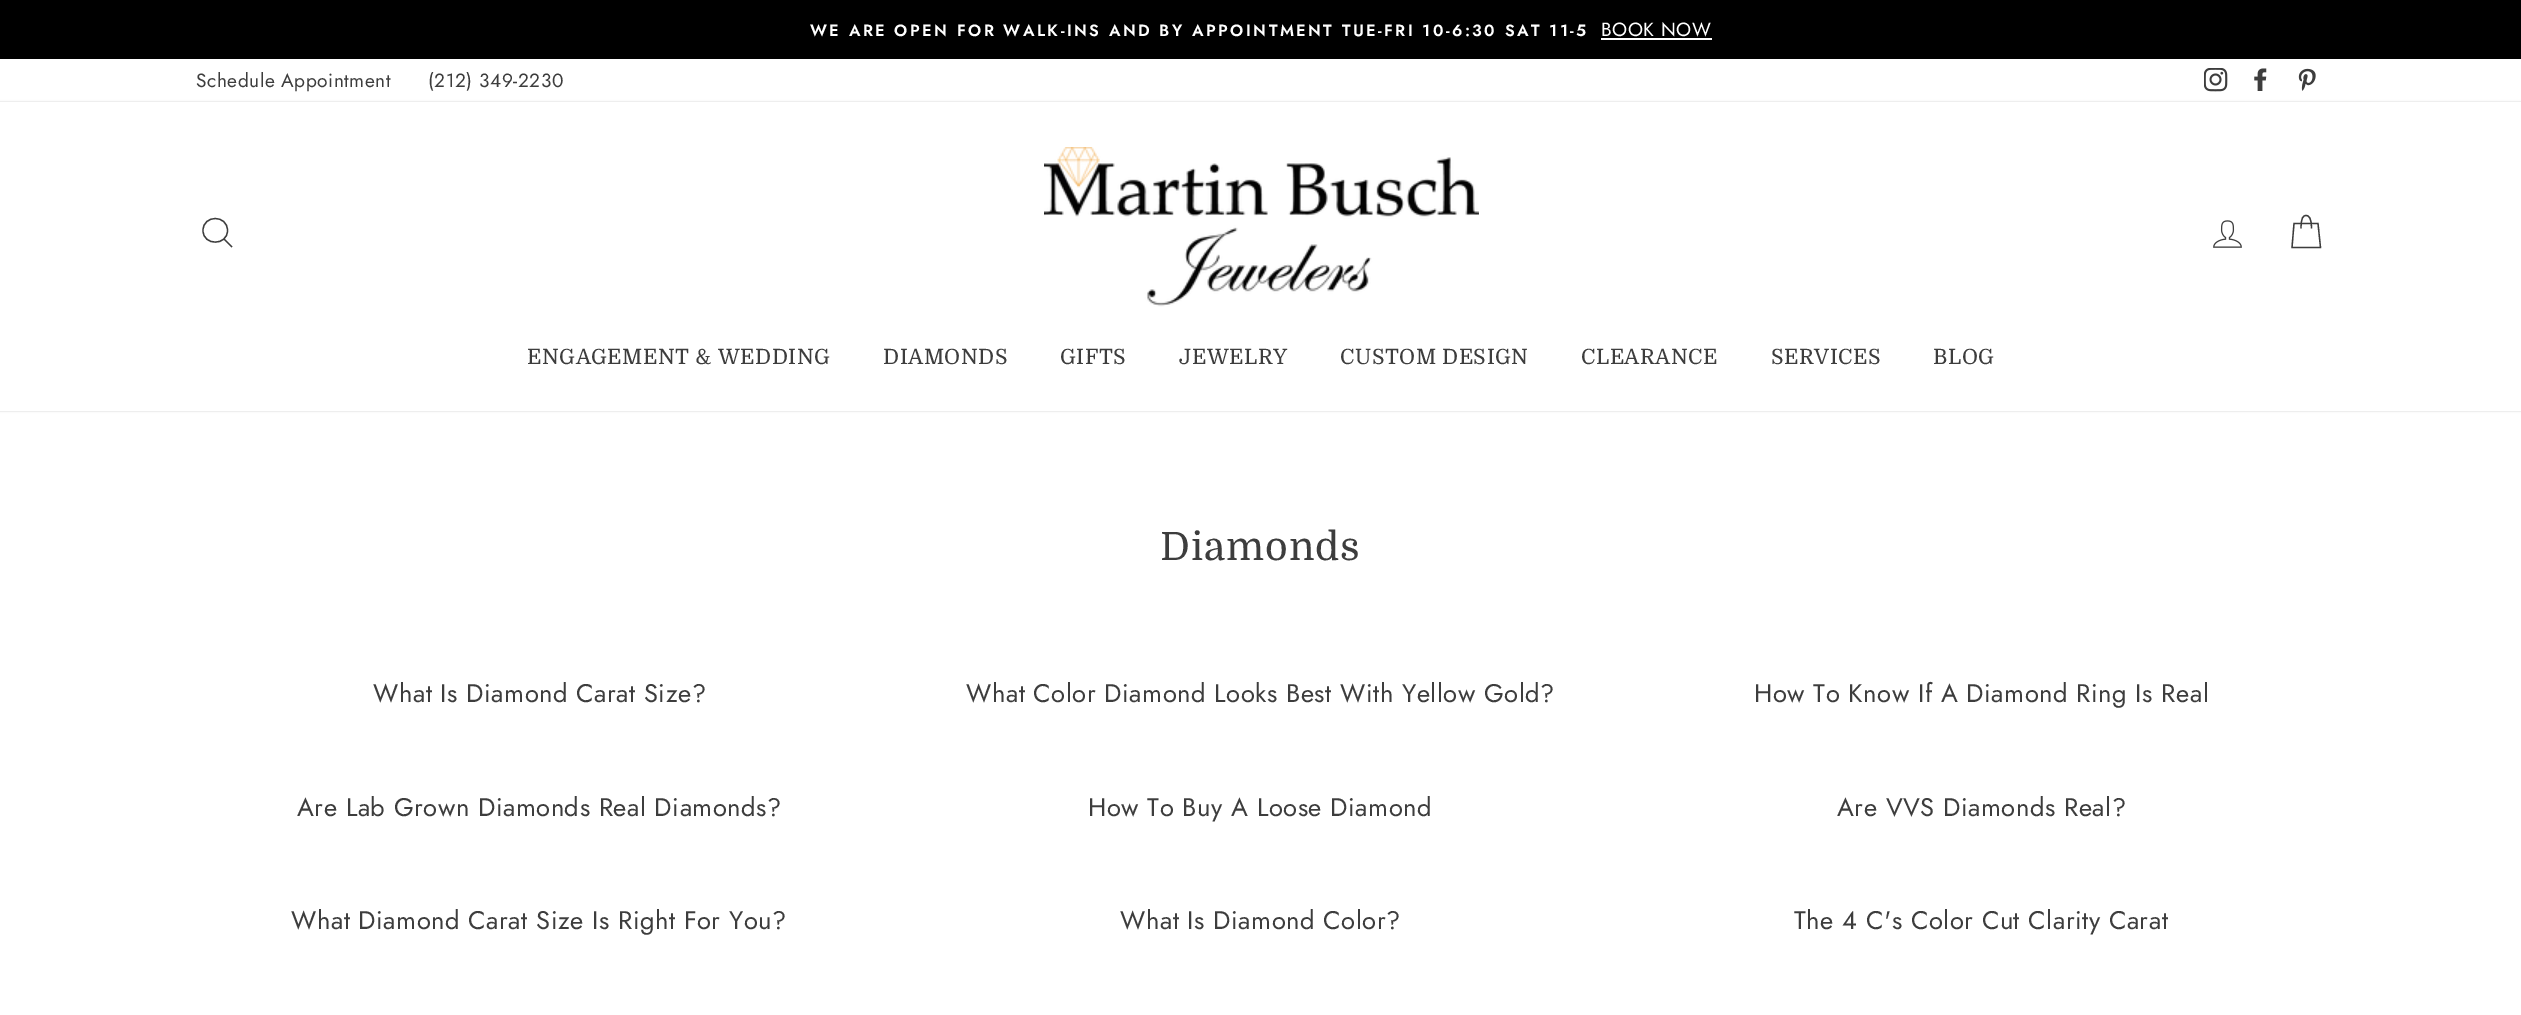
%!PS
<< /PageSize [2521 1015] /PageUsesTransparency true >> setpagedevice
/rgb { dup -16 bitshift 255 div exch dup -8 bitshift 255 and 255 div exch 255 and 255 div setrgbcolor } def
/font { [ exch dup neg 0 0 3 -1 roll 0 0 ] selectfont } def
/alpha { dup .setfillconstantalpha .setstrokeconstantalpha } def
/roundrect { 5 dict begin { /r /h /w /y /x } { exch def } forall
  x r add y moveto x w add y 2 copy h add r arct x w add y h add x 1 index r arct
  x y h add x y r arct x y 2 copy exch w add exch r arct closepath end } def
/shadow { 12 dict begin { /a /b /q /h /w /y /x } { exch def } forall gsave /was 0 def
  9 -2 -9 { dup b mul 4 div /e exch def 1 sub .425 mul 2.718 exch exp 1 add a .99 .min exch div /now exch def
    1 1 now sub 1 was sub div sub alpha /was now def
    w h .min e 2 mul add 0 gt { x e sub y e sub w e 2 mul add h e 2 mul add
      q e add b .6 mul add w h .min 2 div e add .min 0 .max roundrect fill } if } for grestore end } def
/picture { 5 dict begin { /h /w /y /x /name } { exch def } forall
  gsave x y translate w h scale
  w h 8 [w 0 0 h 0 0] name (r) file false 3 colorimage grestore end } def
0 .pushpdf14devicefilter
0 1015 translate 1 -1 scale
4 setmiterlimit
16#FFFFFF rgb
0 0 2521 1015 rectfill
16#000000 rgb
0 0 2521 59 rectfill
/Jost-SemiBold 16.25 font
16#FFFFFF rgb
810 36 moveto 2.45 0 (WE ARE OPEN FOR WALK-INS AND BY APPOINTMENT TUE-FRI 10-6:30 SAT 11-5) ashow
/Jost-Regular 19.1 font
1601 36 moveto 0.55 0 (BOOK NOW) ashow
1601 38 111 2 rectfill
16#3D3D3D rgb
196 87 moveto 0.55 0 (Schedule Appointment) ashow
428 87 moveto 0.55 0 (\(212\) 349-2230) ashow
(pic1.raw) 2204 68 24 24 picture
(pic2.raw) 2254 68 13 23 picture
(pic3.raw) 2298 68 18 23 picture
gsave
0 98 moveto 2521 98 lineto 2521 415 lineto 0 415 lineto closepath 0 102 moveto 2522 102 lineto 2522 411 lineto 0 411 lineto closepath eoclip newpath
16#000000 rgb
0 102 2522 309 0 1 0.2 shadow
grestore
1.3 setlinewidth
227.5 230.5 moveto 227.5 246 203 246 203 230.5 curveto 203 214.5 227.5 214.5 227.5 230.5 curveto closepath 232 247 moveto 224 239 lineto stroke
(pic4.raw) 1044 147 435 160 picture
(pic5.raw) 2213 220 29 28 picture
2301 228.5 moveto 2301 218 2303 215.5 2306 215.5 curveto 2309 215.5 2311.5 218 2311.5 228.5 curveto 2294 223.5 moveto 2318 223.5 lineto 2320.5 247.5 lineto 2292 247.5 lineto closepath stroke
/Domine-Regular 21 font
527 364 moveto 0.5 0 (ENGAGEMENT & WEDDING) ashow
883 364 moveto 0.5 0 (DIAMONDS) ashow
1060 364 moveto 0.5 0 (GIFTS) ashow
1179 364 moveto 0.5 0 (JEWELRY) ashow
1340 364 moveto 0.5 0 (CUSTOM DESIGN) ashow
1581 364 moveto 0.5 0 (CLEARANCE) ashow
1771 364 moveto 0.5 0 (SERVICES) ashow
1933 364 moveto 0.5 0 (BLOG) ashow
/Domine-Regular 39 font
1160 560 moveto 1 0 (Diamonds) ashow
/Jost-Regular 25.5 font
373 702 moveto 0.55 0 (What Is Diamond Carat Size?) ashow
966 702 moveto 0.55 0 (What Color Diamond Looks Best With Yellow Gold?) ashow
1754 702 moveto 0.55 0 (How To Know If A Diamond Ring Is Real) ashow
297 816 moveto 0.55 0 (Are Lab Grown Diamonds Real Diamonds?) ashow
1088 816 moveto 0.55 0 (How To Buy A Loose Diamond) ashow
1837 816 moveto 0.55 0 (Are VVS Diamonds Real?) ashow
291 929 moveto 0.55 0 (What Diamond Carat Size Is Right For You?) ashow
1120 929 moveto 0.55 0 (What Is Diamond Color?) ashow
1794 929 moveto 0.55 0 (The 4 C's Color Cut Clarity Carat) ashow
.poppdf14devicefilter showpage
